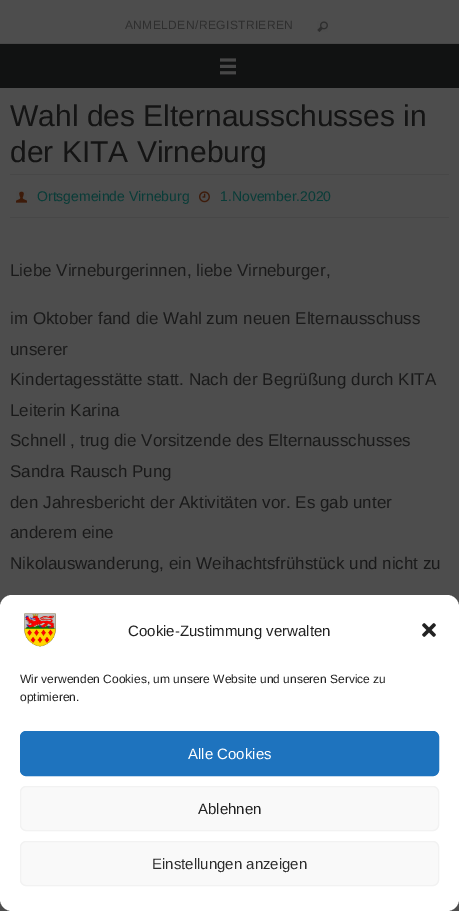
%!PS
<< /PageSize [459 911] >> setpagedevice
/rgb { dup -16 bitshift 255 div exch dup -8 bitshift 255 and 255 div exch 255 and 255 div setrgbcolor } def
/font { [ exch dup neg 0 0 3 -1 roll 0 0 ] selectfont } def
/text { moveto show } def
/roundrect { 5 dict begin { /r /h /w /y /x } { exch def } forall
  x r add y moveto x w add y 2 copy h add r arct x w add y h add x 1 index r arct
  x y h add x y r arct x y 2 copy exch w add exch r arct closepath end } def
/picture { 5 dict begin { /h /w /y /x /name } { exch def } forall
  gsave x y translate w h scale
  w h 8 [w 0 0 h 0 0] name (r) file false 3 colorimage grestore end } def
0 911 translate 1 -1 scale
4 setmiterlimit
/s1 { /LiberationSans-Regular 30 font 16#141414 rgb } def
/s2 { /LiberationSans-Regular 14 font 16#093C38 rgb } def
/s3 { /LiberationSans-Regular 17 font 16#1A1A1A rgb } def
/s4 { /LiberationSans-Regular 15 font 16#222222 rgb } def
/s5 { /LiberationSans-Regular 12 font 16#222222 rgb } def
/s6 { /LiberationSans-Regular 15 font 16#FFFFFF rgb } def
/s7 { /LiberationSans-Regular 15 font 16#2E2E2E rgb } def
16#4D4D4D rgb
0 0 459 911 rectfill
16#474747 rgb
0 43 459 1 rectfill
/LiberationSans-Regular 12 font
16#2E2E2E rgb
125 29 moveto 0.4 0 (ANMELDEN/REGISTRIEREN) ashow
(pic1.raw) 317 21 11 11 picture
16#111212 rgb
0 44 459 44 rectfill
(pic2.raw) 220 58 16 17 picture
s1
(Wahl des Elternausschusses in) 10 126 text
(der KITA Virneburg) 10 162 text
16#474747 rgb
10 174 439 1 rectfill
10 217 439 1 rectfill
(pic3.raw) 16 191 11 12 picture
s2
(Ortsgemeinde Virneburg) 37 201 text
(pic4.raw) 199 191 11 12 picture
(1.November.2020) 220 201 text
s3
(Liebe Virneburgerinnen, liebe Virneburger,) 10 276 text
(im Oktober fand die Wahl zum neuen Elternausschuss) 10 324 text
(unserer) 10 355 text
(Kindertagesstätte statt. Nach der Begrüßung durch KITA) 10 385 text
(Leiterin Karina) 10 416 text
(Schnell , trug die Vorsitzende des Elternausschusses) 10 446 text
(Sandra Rausch Pung) 10 477 text
(den Jahresbericht der Aktivitäten vor. Es gab unter) 10 508 text
(anderem eine) 10 538 text
(Nikolauswanderung, ein Weihachtsfrühstück und nicht zu) 10 569 text
16#FFFFFF rgb
0 595 459 316 12 roundrect fill
(pic5.raw) 24 613 32 34 picture
s4
(Cookie-Zustimmung verwalten) 128 636 text
(pic6.raw) 422 623 14 14 picture
s5
(Wir verwenden Cookies, um unsere Website und unseren Service zu) 20 683 text
(optimieren.) 20 701 text
16#1E73BE rgb
20.5 731.5 418 44 5.5 roundrect gsave fill grestore
stroke
s6
(Alle Cookies) 188 759 text
16#F9F9F9 rgb
20.5 786.5 418 44 5.5 roundrect gsave fill grestore
16#F2F2F2 rgb
stroke
s4
(Ablehnen) 198 814 text
16#F9F9F9 rgb
20.5 841.5 418 44 5.5 roundrect gsave fill grestore
16#F2F2F2 rgb
stroke
s7
(Einstellungen anzeigen) 152 869 text
showpage
